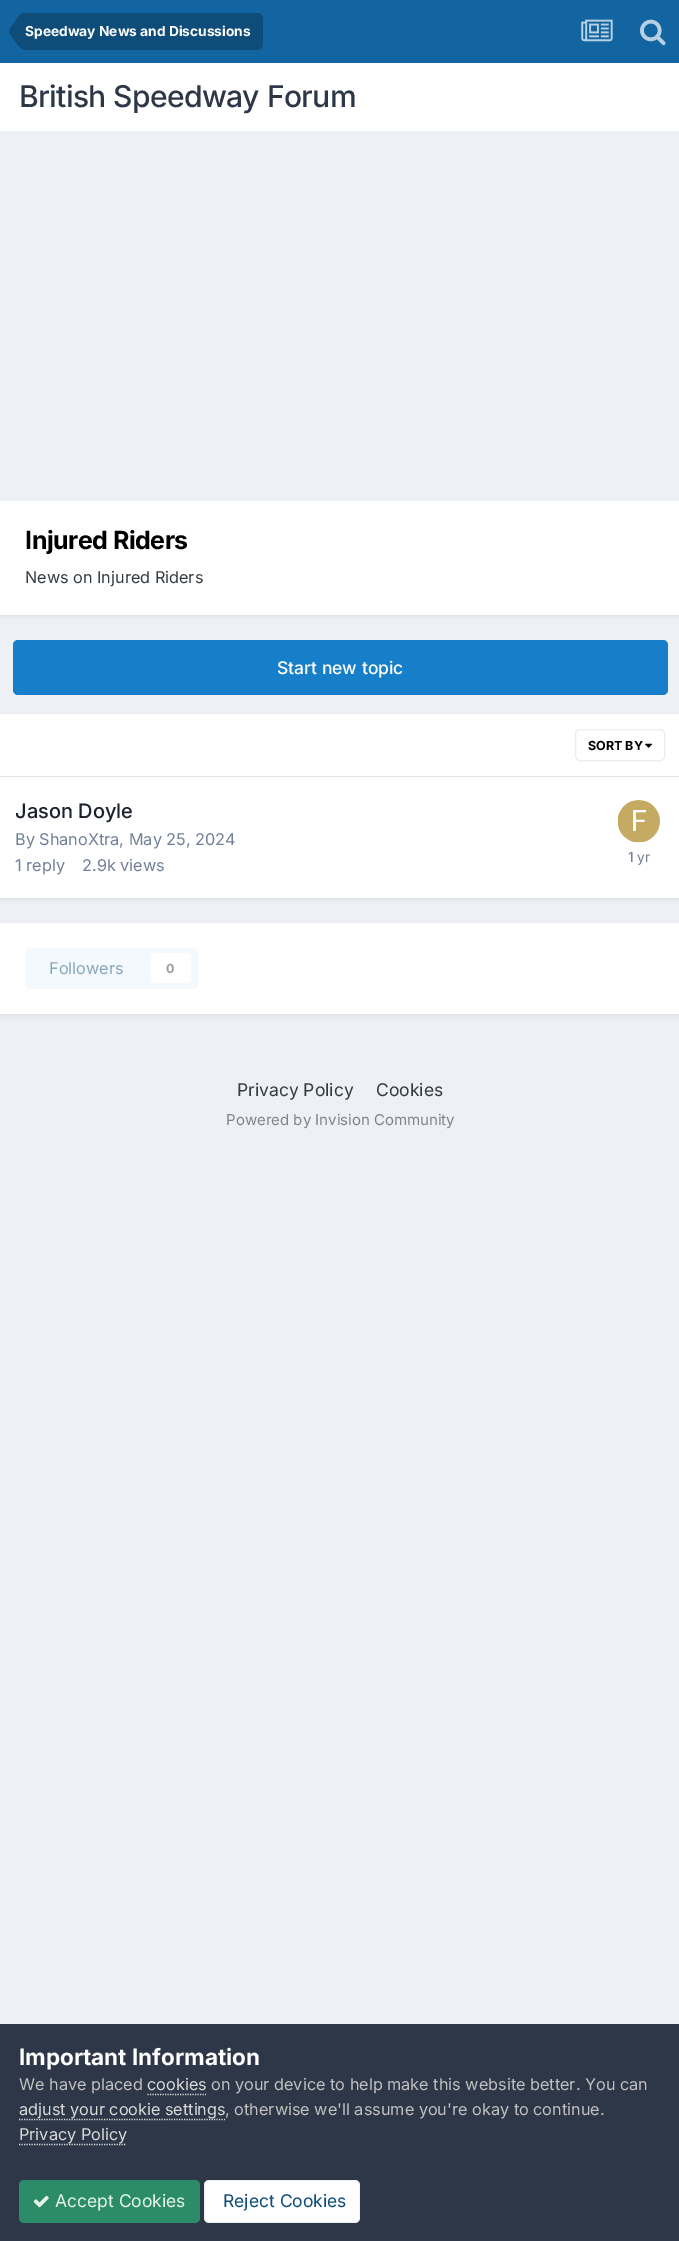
%!PS
<< /PageSize [679 2241] /PageUsesTransparency true >> setpagedevice
/rgb { dup -16 bitshift 255 div exch dup -8 bitshift 255 and 255 div exch 255 and 255 div setrgbcolor } def
/font { [ exch dup neg 0 0 3 -1 roll 0 0 ] selectfont } def
/text { moveto show } def
/alpha { dup .setfillconstantalpha .setstrokeconstantalpha } def
/roundrect { 5 dict begin { /r /h /w /y /x } { exch def } forall
  x r add y moveto x w add y 2 copy h add r arct x w add y h add x 1 index r arct
  x y h add x y r arct x y 2 copy exch w add exch r arct closepath end } def
/shadow { 12 dict begin { /a /b /q /h /w /y /x } { exch def } forall gsave /was 0 def
  9 -2 -9 { dup b mul 4 div /e exch def 1 sub .425 mul 2.718 exch exp 1 add a .99 .min exch div /now exch def
    1 1 now sub 1 was sub div sub alpha /was now def
    w h .min e 2 mul add 0 gt { x e sub y e sub w e 2 mul add h e 2 mul add
      q e add b .6 mul add w h .min 2 div e add .min 0 .max roundrect fill } if } for grestore end } def
/picture { 5 dict begin { /h /w /y /x /name } { exch def } forall
  gsave x y translate w h scale
  w h 8 [w 0 0 h 0 0] name (r) file false 3 colorimage grestore end } def
0 .pushpdf14devicefilter
0 2241 translate 1 -1 scale
4 setmiterlimit
/s1 { /Inter-Bold 13.75 font 16#FFFFFF rgb } def
/s2 { /Inter-Regular 16.25 font 16#353C41 rgb } def
/s3 { /Inter-Medium 17.5 font 16#FFFFFF rgb } def
/s4 { /Inter-Bold 12.5 font 16#000000 rgb } def
/s5 { /Inter-Medium 20 font 16#1A202C rgb } def
/s6 { /Inter-Regular 16.25 font 16#718096 rgb } def
/s7 { /Inter-Regular 13.75 font 16#718096 rgb } def
/s8 { /Inter-Regular 16.25 font 16#87A6BC rgb } def
/s9 { /Inter-Bold 12.5 font 16#9A9EA0 rgb } def
/s10 { /Inter-Regular 17.5 font 16#353C41 rgb } def
/s11 { /Inter-Regular 15 font 16#7F8489 rgb } def
/s12 { /Inter-Bold 22.5 font 16#FFFFFF rgb } def
/s13 { /Inter-Regular 16.25 font 16#C0C0C0 rgb } def
/s14 { /Inter-Regular 16.25 font 16#DADADA rgb } def
/s15 { /Inter-Regular 17.5 font 16#E3F3EC rgb } def
/s16 { /Inter-Regular 17.5 font 16#0E4C79 rgb } def
16#EDF0F4 rgb
0 0 679 2241 rectfill
16#1265A1 rgb
0 0 679 63 rectfill
16#0E4C79 rgb
25 13 moveto 257 13 lineto 260.5 13 263 15.5 263 19 curveto 263 44 lineto 263 47.5 260.5 50 257 50 curveto 25 50 lineto closepath fill
25 49.5 moveto 19.5 49.5 16.5 43 14 39.5 curveto 12 37 9.5 34.5 9.5 31 curveto 25 31 lineto closepath 25 12.5 moveto 25 31 lineto 9.5 31 lineto 9 29 11.5 26.5 12.5 25 curveto 15.5 21 19.5 12.5 25 12.5 curveto closepath fill
s1
(Speedway News and Discussions) 25 36 text
(pic1.raw) 581 19 32 23 picture
(pic2.raw) 640 19 26 27 picture
0 63 679 68 rectfill
/Inter-Medium 30 font
16#2D3748 rgb
19 107 moveto -0.6 0 (British Speedway Forum) ashow
1 505 678 111 0 2.5 0.1 shadow
16#FFFFFF rgb
0 501 679 114 rectfill
/Inter-Bold 25 font
16#000000 rgb
25 549 moveto -0.5 0 (Injured Riders) ashow
s2
(News on Injured Riders) 25 583 text
16#177EC9 rgb
13 640 655 55 5 roundrect fill
s3
(Start new topic) 277 674 text
16#2D3748 rgb
1 718 678 181 0 2.5 0.1 shadow
16#FFFFFF rgb
0 714 679 184 rectfill
16#E1E2E3 rgb
0 776 679 1 rectfill
(pic3.raw) 645 743 8 5 picture
16#EBECEC rgb
575.5 729.5 89 31 4.5 roundrect stroke
s4
(SORT BY) 588 750 text
s5
(Jason Doyle) 15 818 text
s6
(By ShanoXtra, May 25, 2024) 15 845 text
(1 reply) 15 871 text
(2.9k views) 82 871 text
(pic4.raw) 618 800 42 43 picture
s7
(1 yr) 628 862 text
16#2D3748 rgb
1 926 678 89 0 2.5 0.1 shadow
16#FFFFFF rgb
0 923 679 91 rectfill
16#F4F9FD rgb
25 948 173 41 5 roundrect fill
s8
(Followers) 49 974 text
16#FFFFFF rgb
151 953 40 30 5 roundrect fill
s9
(0) 166 973 text
s10
(Privacy Policy) 237 1096 text
(Cookies) 376 1096 text
s11
(Powered by Invision Community) 226 1125 text
16#2D3748 rgb
0 2024 679 217 rectfill
s12
(Important Information) 19 2065 text
s13
(We have placed) 19 2090 text
s14
(cookies) 147 2090 text
1.2 setlinewidth
[1.25 1.25] 0 setdash
147.5 2094.5 moveto 206 2094.5 lineto stroke
s13
(on your device to help make this website better. You can) 211 2090 text
16#DADADA rgb
19 2119.5 moveto 225 2119.5 lineto stroke
(adjust your cookie settings) 19 2115 text
s13
(, otherwise we'll assume you're okay to continue.) 225 2115 text
16#DADADA rgb
19 2144.5 moveto 126 2144.5 lineto stroke
(Privacy Policy) 19 2140 text
16#2C8C69 rgb
19 2180 181 43 5 roundrect fill
(pic5.raw) 33 2195 16 13 picture
s15
(Accept Cookies) 55 2207 text
16#FFFFFF rgb
204 2180 156 43 5 roundrect fill
0.07 alpha
16#0E4C79 rgb
1 setlinewidth
[] 0 setdash
204.5 2180.5 155 42 4.5 roundrect stroke
1 alpha
(Reject Cookies) 223 2207 text
.poppdf14devicefilter showpage
